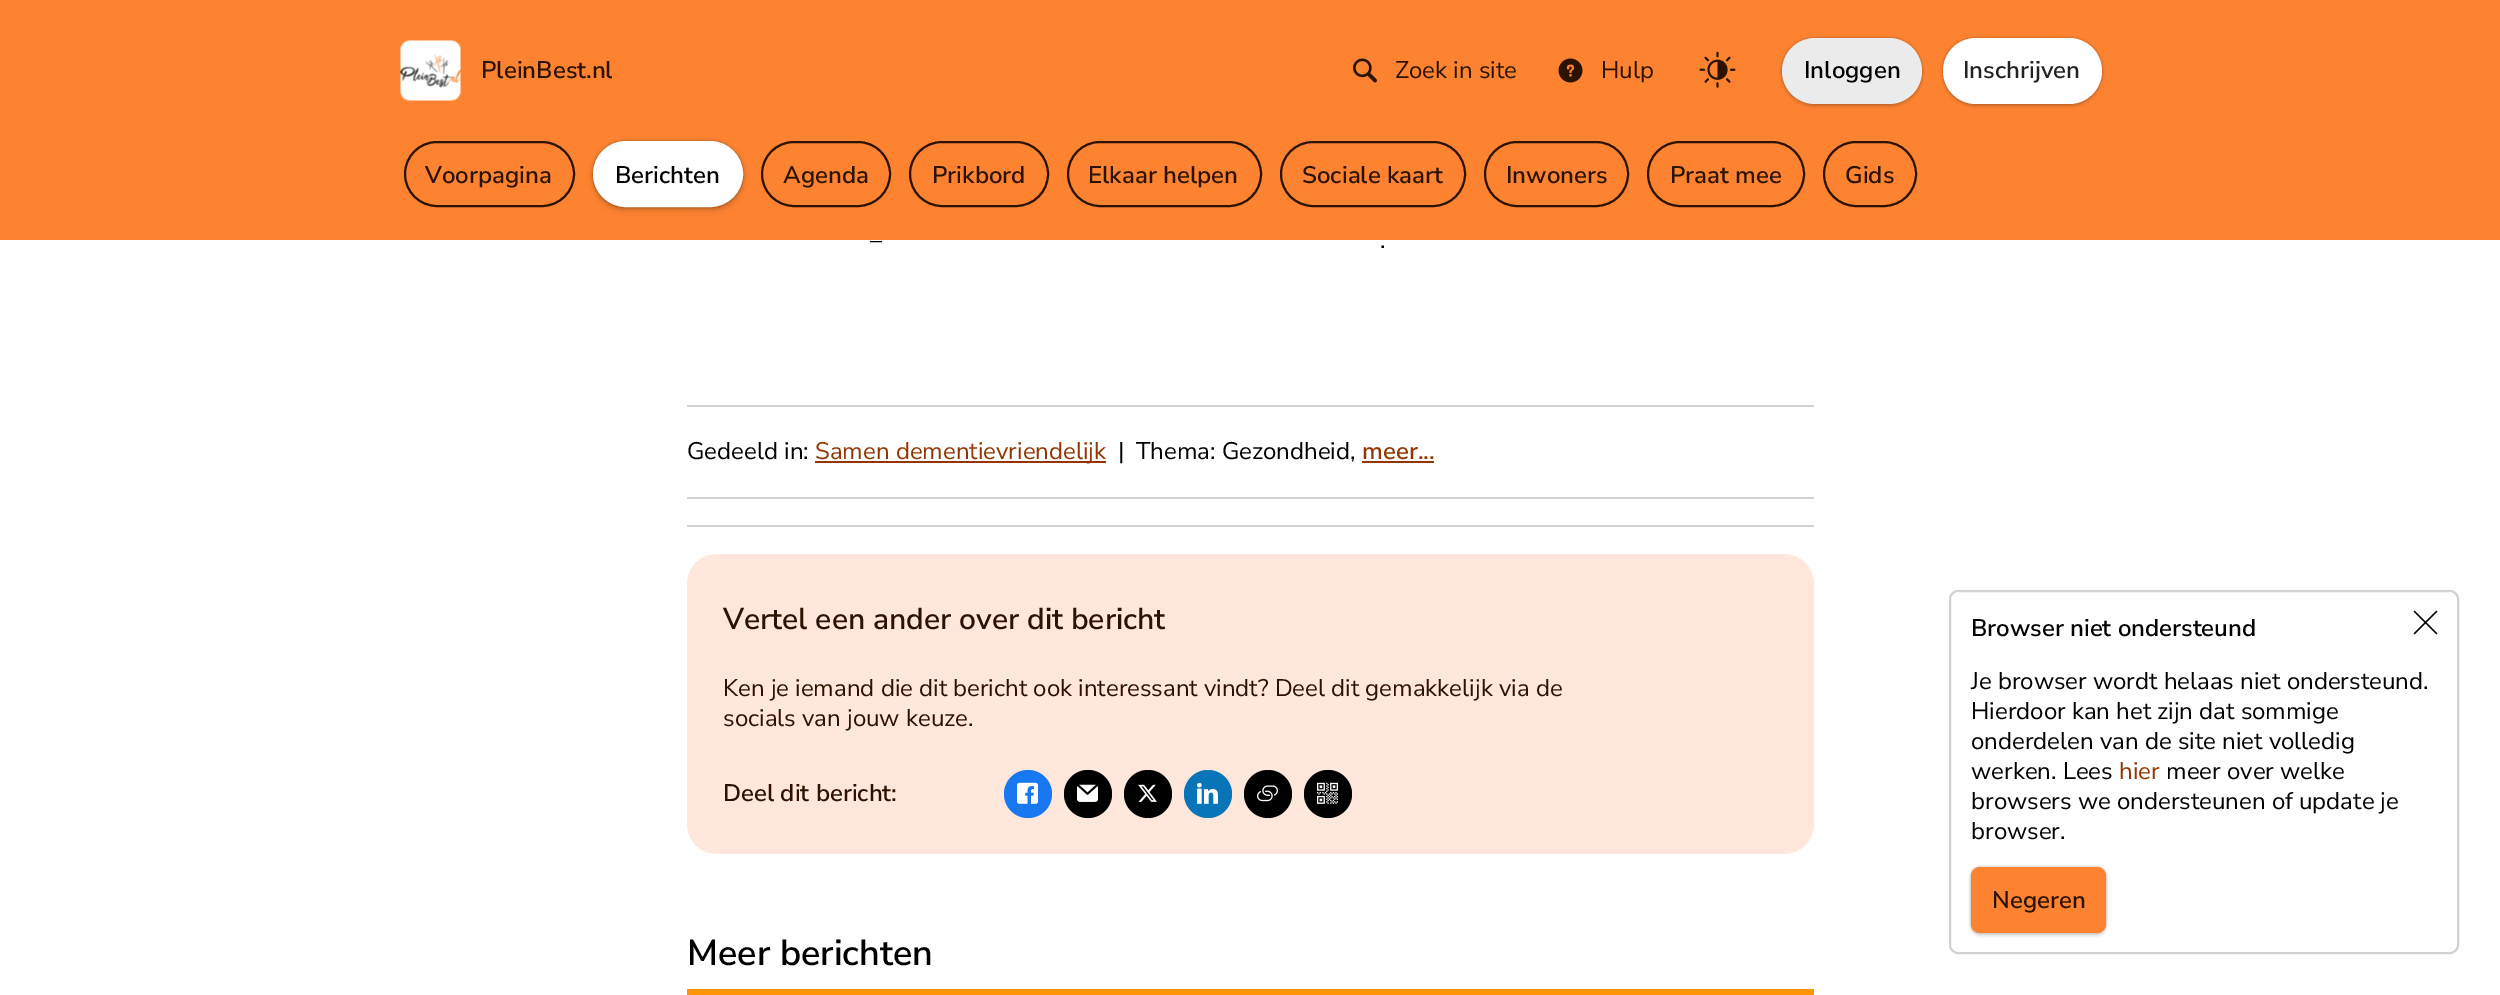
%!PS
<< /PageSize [2500 995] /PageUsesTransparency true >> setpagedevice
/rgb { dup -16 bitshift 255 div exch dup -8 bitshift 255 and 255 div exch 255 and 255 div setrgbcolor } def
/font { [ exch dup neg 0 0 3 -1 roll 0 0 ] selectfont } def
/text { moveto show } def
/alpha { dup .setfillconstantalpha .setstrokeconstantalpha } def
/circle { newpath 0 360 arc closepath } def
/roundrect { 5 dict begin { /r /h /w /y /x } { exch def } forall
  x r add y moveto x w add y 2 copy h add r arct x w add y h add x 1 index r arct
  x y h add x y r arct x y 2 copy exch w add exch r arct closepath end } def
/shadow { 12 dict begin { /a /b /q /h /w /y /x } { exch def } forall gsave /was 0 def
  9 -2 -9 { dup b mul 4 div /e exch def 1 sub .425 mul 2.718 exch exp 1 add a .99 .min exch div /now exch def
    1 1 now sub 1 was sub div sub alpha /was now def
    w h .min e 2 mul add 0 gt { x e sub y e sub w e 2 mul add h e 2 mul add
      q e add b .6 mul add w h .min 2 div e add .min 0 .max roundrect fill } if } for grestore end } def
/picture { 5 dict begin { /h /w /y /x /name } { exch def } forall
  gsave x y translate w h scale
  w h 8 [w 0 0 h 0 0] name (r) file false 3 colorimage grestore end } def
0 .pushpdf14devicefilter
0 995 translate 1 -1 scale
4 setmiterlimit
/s1 { /NunitoSans-SemiBold 24 font 16#2C1200 rgb } def
/s2 { /NunitoSans-Regular 24 font 16#2C1200 rgb } def
/s3 { /NunitoSans-SemiBold 24 font 16#000000 rgb } def
/s4 { /NunitoSans-SemiBold 24 font 16#222222 rgb } def
/s5 { /NunitoSans-Regular 24 font 16#000000 rgb } def
/s6 { /NunitoSans-Regular 24 font 16#943500 rgb } def
/s7 { /NunitoSans-SemiBold 24 font 16#943500 rgb } def
/s8 { /NunitoSans-SemiBold 30 font 16#2C1200 rgb } def
/s9 { /NunitoSans-SemiBold 36 font 16#000000 rgb } def
16#FFFFFF rgb
0 0 2500 995 rectfill
16#FE8330 rgb
0 0 2500 240 rectfill
(pic1.raw) 400 40 61 61 picture
s1
(PleinBest.nl) 481 78 text
(pic2.raw) 1353 58 24 25 picture
s2
(Zoek in site) 1395 78 text
(pic3.raw) 1558 58 25 25 picture
(Hulp) 1601 78 text
(pic4.raw) 1699 51 37 37 picture
16#000000 rgb
1782 41 140 66 33 1.5 0.1 shadow
1782 38 140 66 33 1.5 0.3 shadow
16#EBEBEB rgb
1782 38 140 66 33 roundrect fill
s3
(Inloggen) 1804 78 text
1943 41 159 66 33 1.5 0.1 shadow
1943 38 159 66 33 1.5 0.3 shadow
16#FFFFFF rgb
1943 38 159 66 33 roundrect fill
s4
(Inschrijven) 1963 78 text
16#2C1200 rgb
2 setlinewidth
405 142 169 64 32 roundrect stroke
(Voorpagina) 425 183 text
16#000000 rgb
593 144 150 66 33 3 0.2 shadow
593 141 150 66 33 1.5 0.3 shadow
16#FFFFFF rgb
594 142 148 64 32 roundrect gsave fill grestore
stroke
s3
(Berichten) 615 183 text
16#2C1200 rgb
762 142 128 64 32 roundrect stroke
(Agenda) 783 183 text
910 142 138 64 32 roundrect stroke
(Prikbord) 932 183 text
1068 142 193 64 32 roundrect stroke
(Elkaar helpen) 1088 183 text
1281 142 184 64 32 roundrect stroke
(Sociale kaart) 1302 183 text
1485 142 143 64 32 roundrect stroke
(Inwoners) 1506 183 text
1648 142 156 64 32 roundrect stroke
(Praat mee) 1670 183 text
1824 142 92 64 32 roundrect stroke
(Gids) 1845 183 text
s5
(–) 870 248 text
(.) 1380 248 text
16#D2D2D2 rgb
687 405 1127 2 rectfill
s5
(Gedeeld in:) 687 459 text
16#943500 rgb
815 461 291 2 rectfill
(Samen dementievriendelijk) 815 459 text
s5
(|) 1118 459 text
(Thema: Gezondheid,) 1136 459 text
s7
(meer...) 1362 459 text
1362 461 72 2 rectfill
16#D2D2D2 rgb
687 497 1127 2 rectfill
687 525 1127 2 rectfill
16#FFE8DB rgb
687 554 1127 300 30 roundrect fill
s8
(Vertel een ander over dit bericht) 723 629 text
s2
(Ken je iemand die dit bericht ook interessant vindt? Deel dit gemakkelijk via de) 723 696 text
(socials van jouw keuze.) 723 726 text
s1
(Deel dit bericht:) 723 801 text
16#1778F2 rgb
1028 794 24 circle fill
(pic5.raw) 1017 782 21 22 picture
16#000000 rgb
1088 794 24 circle fill
(pic6.raw) 1077 784 21 18 picture
1148 794 24 circle fill
(pic7.raw) 1138 784 19 18 picture
16#0775B7 rgb
1208 794 24 circle fill
(pic8.raw) 1197 782 21 22 picture
16#000000 rgb
1268 794 24 circle fill
(pic9.raw) 1257 785 21 17 picture
1328 794 24 circle fill
(pic10.raw) 1317 782 21 22 picture
16#FF9505 rgb
687 989 1127 6 rectfill
s9
(Meer berichten) 687 965 text
16#D2D2D2 rgb
1950 591 508 362 8 roundrect stroke
(pic11.raw) 2413 610 25 25 picture
s3
(Browser niet ondersteund) 1971 636 text
s5
(Je browser wordt helaas niet ondersteund.) 1971 689 text
(Hierdoor kan het zijn dat sommige) 1971 719 text
(onderdelen van de site niet volledig) 1971 749 text
(werken. Lees) 1971 779 text
s6
(hier) 2119 779 text
s5
(meer over welke) 2166 779 text
(browsers we ondersteunen of update je) 1971 809 text
(browser.) 1971 839 text
1971 870 135 66 9 1.5 0.1 shadow
1971 867 135 66 9 1.5 0.3 shadow
16#FE8330 rgb
1971 867 135 66 9 roundrect fill
s1
(Negeren) 1992 908 text
.poppdf14devicefilter showpage
